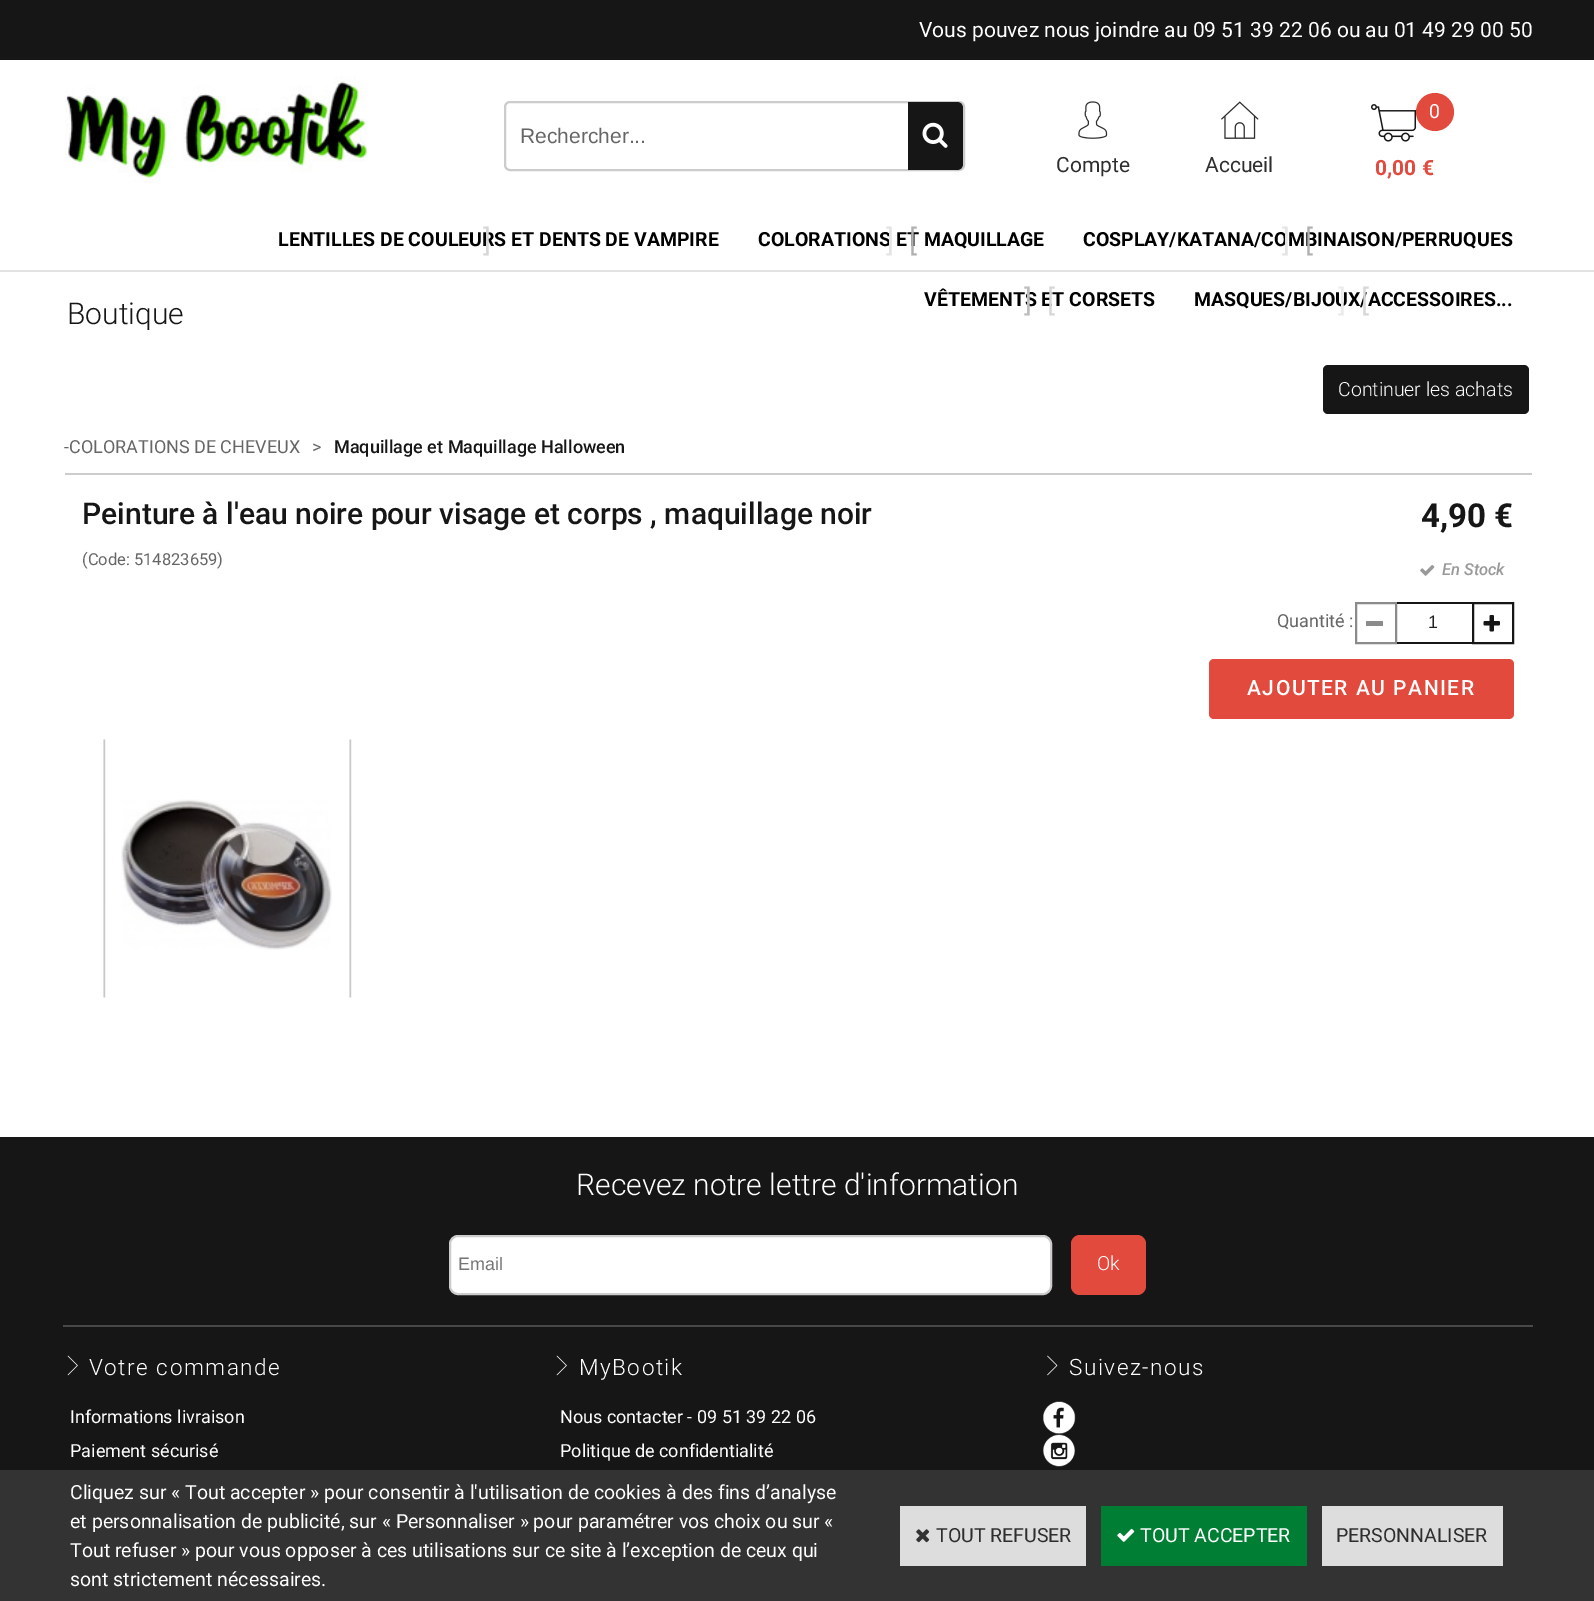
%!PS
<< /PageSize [1594 1601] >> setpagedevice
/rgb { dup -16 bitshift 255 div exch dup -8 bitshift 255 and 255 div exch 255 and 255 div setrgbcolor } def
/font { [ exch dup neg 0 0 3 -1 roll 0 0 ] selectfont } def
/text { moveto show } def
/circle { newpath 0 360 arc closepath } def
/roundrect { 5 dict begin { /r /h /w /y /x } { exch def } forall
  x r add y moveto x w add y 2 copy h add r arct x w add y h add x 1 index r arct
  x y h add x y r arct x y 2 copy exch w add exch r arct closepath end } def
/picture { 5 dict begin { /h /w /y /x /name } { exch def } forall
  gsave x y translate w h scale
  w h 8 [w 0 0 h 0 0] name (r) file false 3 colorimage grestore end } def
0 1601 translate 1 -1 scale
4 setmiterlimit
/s1 { /Roboto-Regular 21 font 16#FFFFFF rgb } def
/s2 { /LiberationSans-Regular 21 font 16#666666 rgb } def
/s3 { /Roboto-Regular 21 font 16#2E2E2E rgb } def
/s4 { /Roboto-Regular 19.5 font 16#FFFFFF rgb } def
/s5 { /Roboto-Bold 21 font 16#E14A3D rgb } def
/s6 { /Roboto-Bold 19.5 font 16#000000 rgb } def
/s7 { /Roboto-Regular 30 font 16#D7D7D7 rgb } def
/s8 { /Roboto-Regular 30 font 16#E4E4E4 rgb } def
/s9 { /Roboto-Regular 30 font 16#B1B1B1 rgb } def
/s10 { /Roboto-Regular 30 font 16#BDBDBD rgb } def
/s11 { /Roboto-Regular 30 font 16#EBEBEB rgb } def
/s12 { /Roboto-Light 30 font 16#161616 rgb } def
/s13 { /Roboto-Light 19.5 font 16#FFFFFF rgb } def
/s14 { /Roboto-Regular 18 font 16#666666 rgb } def
/s15 { /Roboto-Medium 18 font 16#161616 rgb } def
/s16 { /Roboto-Medium 30 font 16#161616 rgb } def
/s17 { /Roboto-Regular 16.5 font 16#666666 rgb } def
/s18 { /Roboto-Bold 33 font 16#161616 rgb } def
/s19 { /Roboto-MediumItalic 16.5 font 16#999999 rgb } def
/s20 { /LiberationSans-Regular 18 font 16#212121 rgb } def
/s21 { /Roboto-Light 30 font 16#FFFFFF rgb } def
/s22 { /LiberationSans-Regular 18 font 16#757575 rgb } def
/s23 { /Roboto-Regular 18 font 16#FFFFFF rgb } def
/s24 { /Roboto-Regular 19.5 font 16#2E2E2E rgb } def
16#FFFFFF rgb
0 0 1594 1601 rectfill
16#161616 rgb
0 0 1594 60 rectfill
16#E2E2E2 rgb
0 270 1594 2 rectfill
s1
(Vous pouvez nous joindre au 09 51 39 22 06 ou au 01 49 29 00 50) 919 37 text
(pic1.raw) 65 76 302 107 picture
16#CCCCCC rgb
2 setlinewidth
505 102 459 68 5 roundrect stroke
s2
(Rechercher...) 520 143 text
16#161616 rgb
908 102 moveto 957 102 lineto 960.5 102 963 104.5 963 108 curveto 963 164 lineto 963 167.5 960.5 170 957 170 curveto 908 170 lineto closepath fill
(pic2.raw) 922 122 26 26 picture
(pic3.raw) 1078 101 30 38 picture
s3
(Compte) 1056 172 text
(pic4.raw) 1221 101 38 38 picture
(Accueil) 1205 172 text
(pic5.raw) 1371 104 45 38 picture
16#E14A3D rgb
1435 112 19 circle fill
s4
(0) 1429 118 text
s5
(0,00 €) 1375 175 text
s6
(LENTILLES DE COULEURS ET DENTS DE VAMPIRE) 278 246 text
s7
(]) 483 251 text
s6
(COLORATIONS ET MAQUILLAGE) 758 246 text
s8
(]) 886 251 text
s9
([) 909 251 text
s6
(COSPLAY/KATANA/COMBINAISON/PERRUQUES) 1083 246 text
s8
(]) 1282 251 text
s9
([) 1305 251 text
s6
(VÊTEMENTS ET CORSETS) 924 306 text
s10
(]) 1024 311 text
s7
([) 1047 311 text
s6
(MASQUES/BIJOUX/ACCESSOIRES...) 1194 306 text
s11
(]) 1338 311 text
s7
([) 1361 311 text
s12
(Boutique) 67 324 text
1323 365 206 49 5 roundrect fill
s13
(Continuer les achats) 1338 396 text
s14
(-COLORATIONS DE CHEVEUX) 64 453 text
(>) 312 453 text
s15
(Maquillage et Maquillage Halloween) 334 453 text
16#CCCCCC rgb
65 473 1467 2 rectfill
s16
(Peinture à l'eau noire pour visage et corps , maquillage noir) 82 524 text
s17
(\(Code: 514823659\)) 82 565 text
s18
(4,90 €) 1421 527 text
(pic6.raw) 1420 565 15 11 picture
s19
(En Stock) 1442 575 text
s14
(Quantité :) 1277 627 text
16#8B8B8B rgb
1356 603 40 40 rectstroke
1366 621 17 5 rectfill
16#161616 rgb
1397 602 75 2 rectfill
1397 642 75 2 rectfill
s20
(1) 1428 628 text
16#161616 rgb
1473 603 40 40 rectstroke
(pic7.raw) 1483 615 17 17 picture
16#E14A3D rgb
1209 659 305 60 5 roundrect fill
/Roboto-Medium 21 font
16#FFFFFF rgb
1247 695 moveto 1.5 0 (AJOUTER AU PANIER) ashow
(pic8.raw) 103 739 249 259 picture
16#161616 rgb
0 1137 1594 333 rectfill
16#494949 rgb
63 1325 1470 2 rectfill
s21
(Recevez notre lettre d'information) 576 1195 text
450 1236 601 58 8 roundrect gsave fill grestore
16#CCCCCC rgb
stroke
s22
(Email) 458 1270 text
16#E14A3D rgb
1071 1235 75 60 9 roundrect fill
s13
(Ok) 1097 1270 text
(pic9.raw) 67 1355 11 21 picture
/Roboto-Light 22.5 font
89 1375 moveto 1.5 0 (Votre commande) ashow
s23
(Informations livraison) 70 1423 text
(Paiement sécurisé) 70 1457 text
(pic9.raw) 556 1355 11 21 picture
/Roboto-Light 22.5 font
579 1375 moveto 1.5 0 (MyBootik) ashow
s23
(Nous contacter - 09 51 39 22 06) 560 1423 text
(Politique de confidentialité) 560 1457 text
(pic10.raw) 1047 1355 11 21 picture
/Roboto-Light 22.5 font
1069 1375 moveto 1.5 0 (Suivez-nous) ashow
(pic11.raw) 1043 1401 33 33 picture
(pic12.raw) 1043 1434 32 33 picture
16#333333 rgb
0 1470 1594 131 rectfill
s4
(Cliquez sur « Tout accepter » pour consentir à l'utilisation de cookies à des fins d’analyse) 70 1499 text
(et personnalisation de publicité, sur « Personnaliser » pour paramétrer vos choix ou sur «) 70 1528 text
(Tout refuser » pour vous opposer à ces utilisations sur ce site à l’exception de ceux qui) 70 1557 text
(sont strictement nécessaires.) 70 1586 text
16#DDDDDD rgb
900 1506 186 60 rectfill
(pic13.raw) 916 1529 14 14 picture
s24
(TOUT REFUSER) 936 1542 text
16#007E33 rgb
1101 1506 206 60 rectfill
(pic14.raw) 1117 1528 18 14 picture
s4
(TOUT ACCEPTER) 1140 1542 text
16#DDDDDD rgb
1322 1506 181 60 rectfill
s24
(PERSONNALISER) 1336 1542 text
showpage
